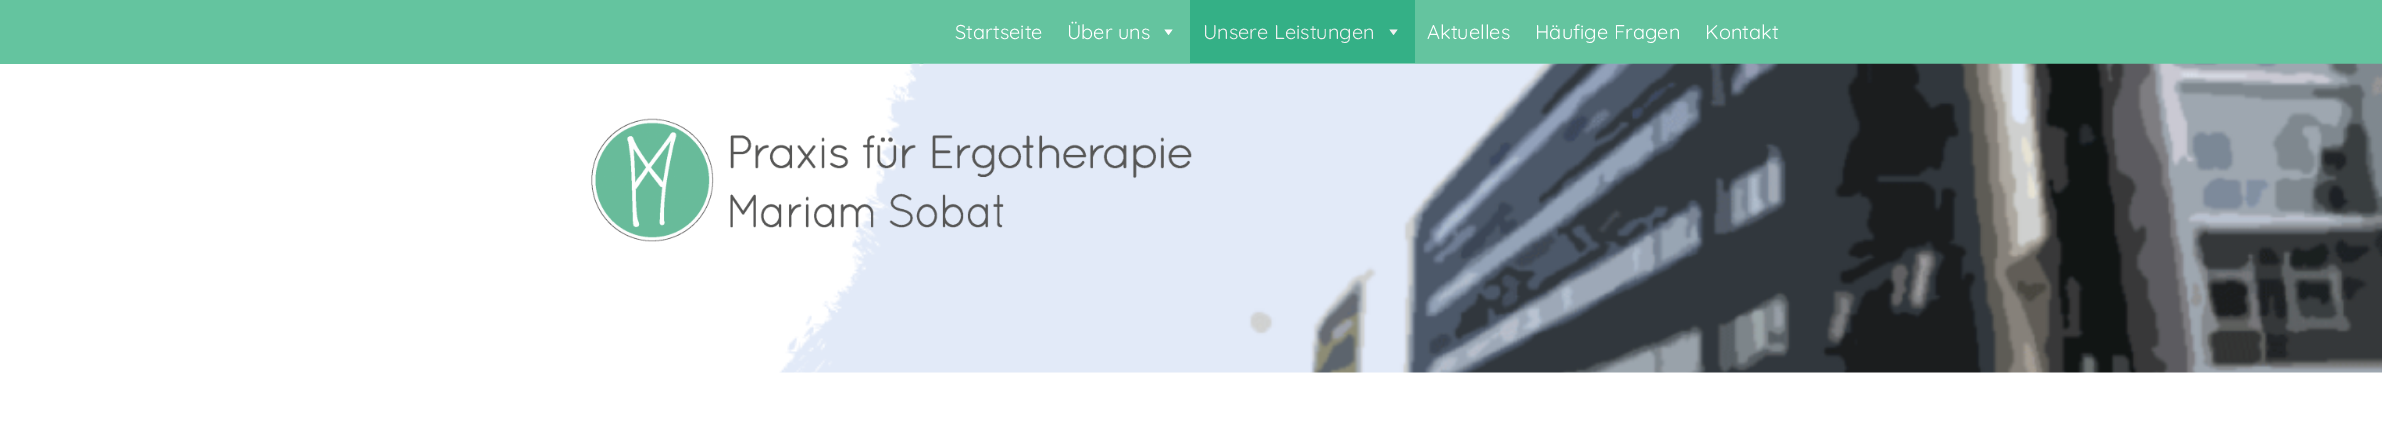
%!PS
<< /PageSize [2382 445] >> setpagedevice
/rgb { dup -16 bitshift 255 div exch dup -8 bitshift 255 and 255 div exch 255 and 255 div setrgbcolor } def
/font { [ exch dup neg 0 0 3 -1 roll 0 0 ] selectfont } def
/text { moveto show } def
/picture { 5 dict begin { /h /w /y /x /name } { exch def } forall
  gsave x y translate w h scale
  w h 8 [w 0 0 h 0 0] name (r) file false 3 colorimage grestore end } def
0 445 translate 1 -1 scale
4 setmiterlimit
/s1 { /Quicksand-Regular 20 font 16#FFFFFF rgb } def
/s2 { /Quicksand-Regular 20 font 16#F0F0F0 rgb } def
16#64C49F rgb
0 0 2382 445 rectfill
s1
(Startseite) 955 39 text
(Über uns) 1067 39 text
1172.5 29.5 moveto 1168.5 35 lineto 1164.5 29.5 lineto closepath fill
16#34B086 rgb
1190 0 225 63 rectfill
s2
(Unsere Leistungen) 1203 39 text
1397.5 29.5 moveto 1393.5 35 lineto 1389.5 29.5 lineto closepath fill
s1
(Aktuelles) 1427 39 text
(Häufige Fragen) 1535 39 text
(Kontakt) 1705 39 text
0 64 2382 381 rectfill
(pic1.raw) 779 63 1603 310 picture
(pic2.raw) 591 118 601 124 picture
showpage
